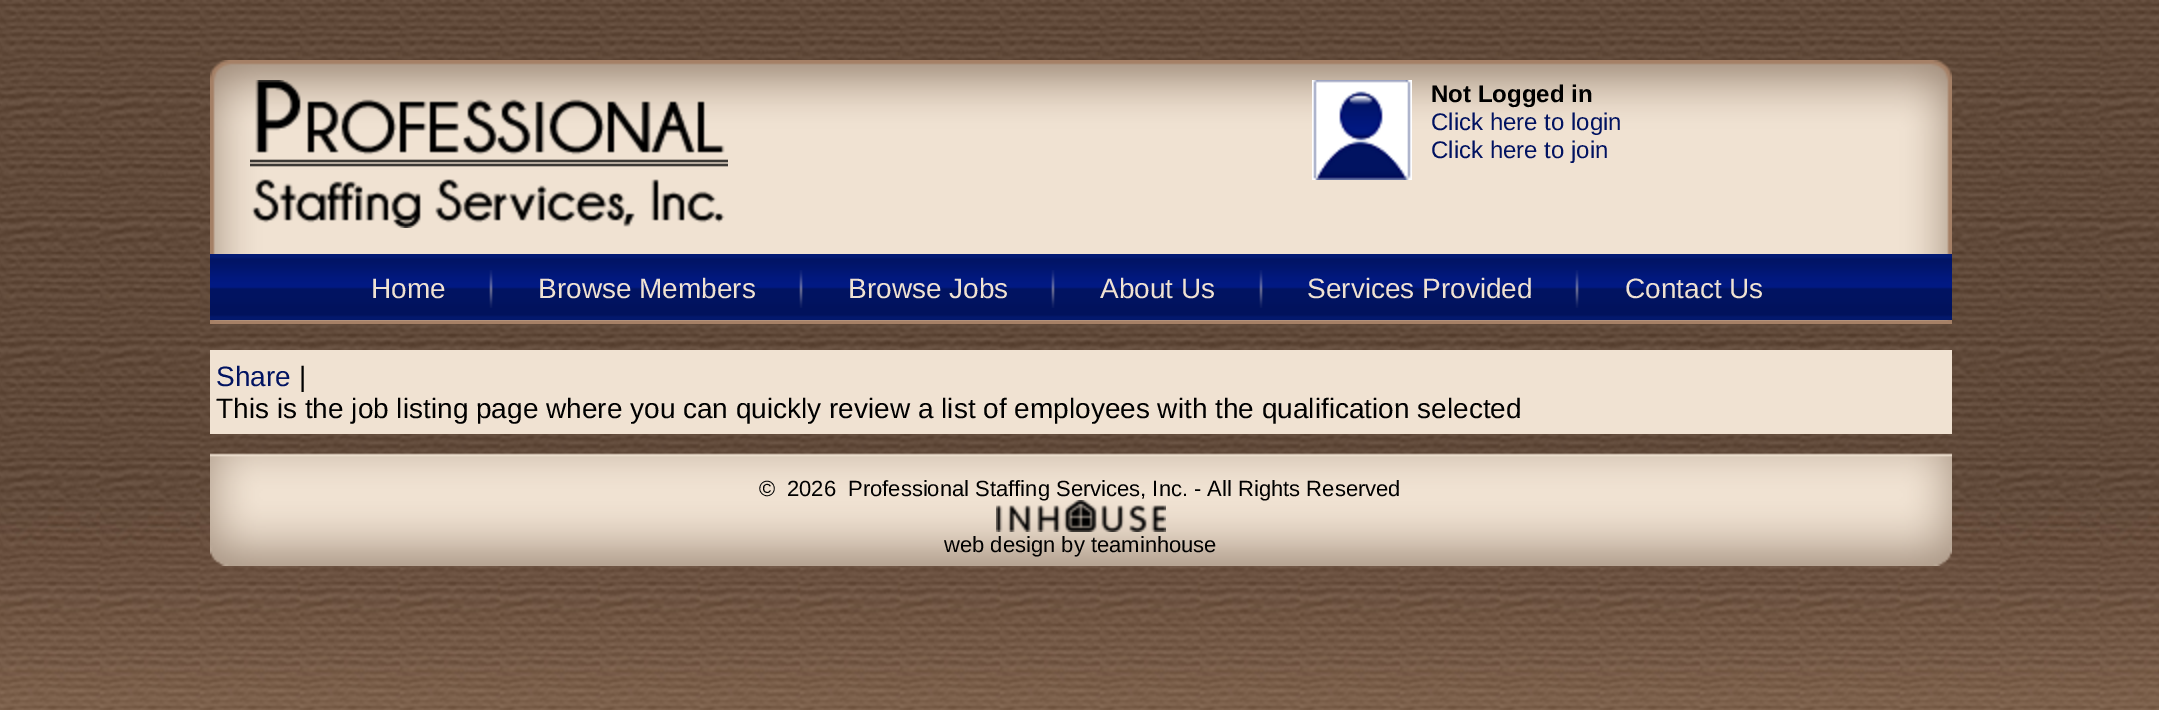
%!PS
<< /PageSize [2159 710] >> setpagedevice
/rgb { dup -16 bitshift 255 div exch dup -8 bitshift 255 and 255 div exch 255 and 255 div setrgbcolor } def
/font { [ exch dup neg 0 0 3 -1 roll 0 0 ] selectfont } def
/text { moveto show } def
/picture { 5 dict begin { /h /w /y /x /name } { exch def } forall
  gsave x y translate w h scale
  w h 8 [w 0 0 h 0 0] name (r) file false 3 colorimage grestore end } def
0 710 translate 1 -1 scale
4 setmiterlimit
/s1 { /LiberationSans-Bold 24 font 16#000000 rgb } def
/s2 { /LiberationSans-Regular 24 font 16#011361 rgb } def
/s3 { /LiberationSans-Regular 28 font 16#F0E2D2 rgb } def
/s4 { /LiberationSans-Regular 28 font 16#011361 rgb } def
/s5 { /LiberationSans-Regular 28 font 16#000000 rgb } def
/s6 { /LiberationSans-Regular 22 font 16#000000 rgb } def
16#FFFFFF rgb
0 0 2159 710 rectfill
(pic1.raw) 0 0 2159 710 picture
(pic2.raw) 210 60 1742 264 picture
(pic3.raw) 250 80 478 148 picture
(pic4.raw) 1312 80 100 100 picture
s1
(Not Logged in) 1431 102 text
s2
(Click here to login) 1431 130 text
(Click here to join) 1431 158 text
(pic5.raw) 210 254 1742 66 picture
s3
(Home) 371 298 text
(pic6.raw) 489 270 4 38 picture
(Browse Members) 538 298 text
(pic6.raw) 799 270 4 38 picture
(Browse Jobs) 848 298 text
(pic6.raw) 1051 270 4 38 picture
(About Us) 1100 298 text
(pic6.raw) 1259 270 4 38 picture
(Services Provided) 1307 298 text
(pic6.raw) 1575 270 4 38 picture
(Contact Us) 1625 298 text
210 350 1742 84 rectfill
s4
(Share) 216 386 text
s5
(|) 299 386 text
(This is the job listing page where you can quickly review a list of employees with the qualification selected) 216 418 text
(pic7.raw) 210 453 1742 113 picture
s6
(©) 759 496 text
(2026) 787 496 text
(Professional Staffing Services, Inc. - All Rights Reserved) 848 496 text
(pic8.raw) 996 500 170 32 picture
(web design by teaminhouse) 944 552 text
showpage
